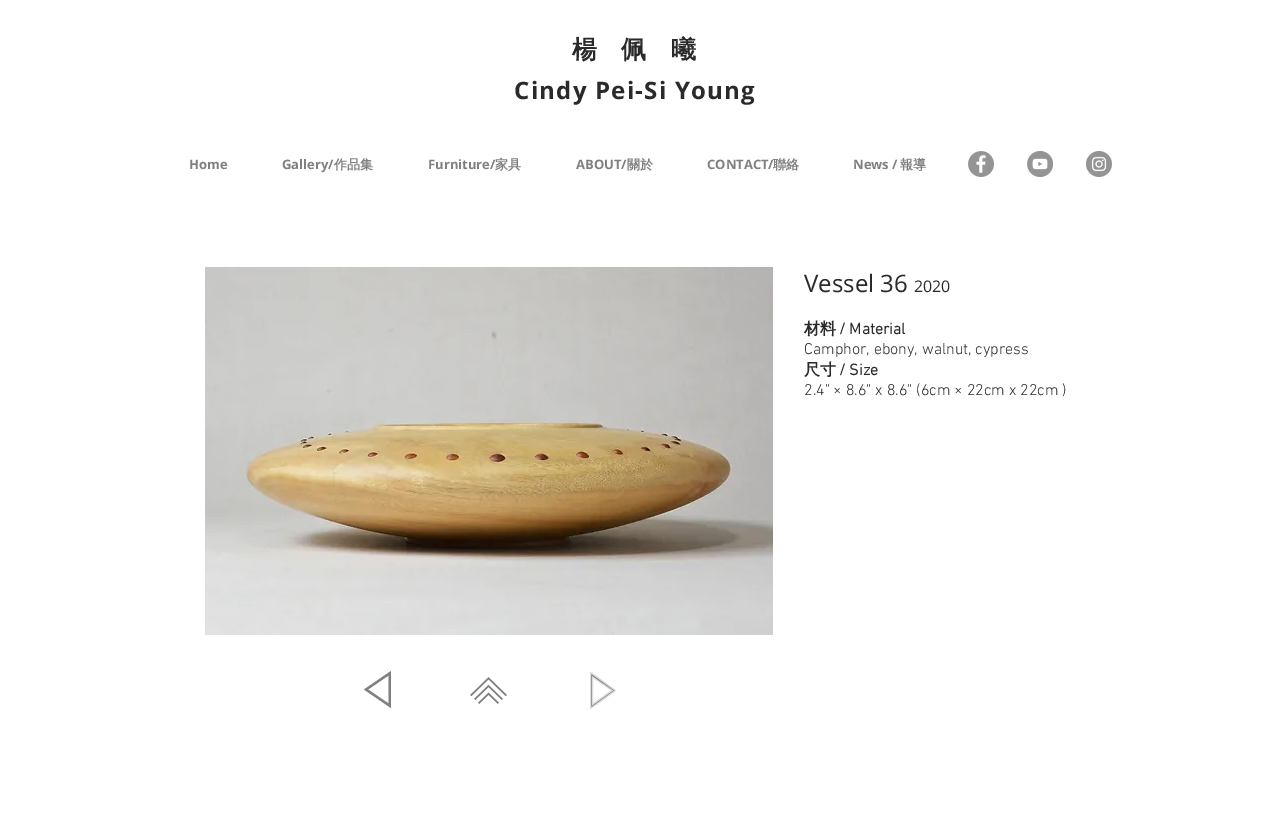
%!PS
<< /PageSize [1273 813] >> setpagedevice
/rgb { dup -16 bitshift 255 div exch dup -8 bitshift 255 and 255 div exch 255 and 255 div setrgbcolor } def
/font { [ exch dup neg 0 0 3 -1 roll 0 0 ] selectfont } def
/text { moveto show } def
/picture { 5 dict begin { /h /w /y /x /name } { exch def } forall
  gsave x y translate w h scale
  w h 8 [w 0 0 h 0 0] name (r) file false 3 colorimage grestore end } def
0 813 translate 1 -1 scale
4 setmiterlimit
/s1 { /OpenSans-Bold 13 font 16#808080 rgb } def
/s2 { /WenQuanYiZenHei-Bold 13 font 16#808080 rgb } def
/s3 { /OpenSans-Regular 24 font 16#2A2A2A rgb } def
/s4 { /OpenSans-Regular 16 font 16#2A2A2A rgb } def
/s5 { /WenQuanYiZenHei-Bold 16 font 16#2A2A2A rgb } def
/s6 { /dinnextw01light-Bold 16 font 16#2A2A2A rgb } def
/s7 { /dinnextw01light-Light 16 font 16#2A2A2A rgb } def
16#FFFFFF rgb
0 0 1273 813 rectfill
/WenQuanYiZenHei-Bold 25 font
16#2A2A2A rgb
572 58 moveto 1.25 0 (楊) ashow
621 58 moveto 1.25 0 (佩) ashow
671 58 moveto 1.25 0 (曦) ashow
/OpenSans-Bold 24 font
514 99 moveto 1.25 0 (Cindy Pei-Si Young) ashow
s1
(Home) 189 169 text
(Gallery/) 282 169 text
s2
(作品集) 334 169 text
s1
(Furniture/) 428 169 text
s2
(家具) 495 169 text
s1
(ABOUT/) 576 169 text
s2
(關於) 627 169 text
s1
(CONTACT/) 707 169 text
s2
(聯絡) 773 169 text
s1
(News /) 853 169 text
s2
(報導) 900 169 text
(pic1.raw) 968 151 26 26 picture
(pic2.raw) 1027 151 26 26 picture
(pic3.raw) 1086 151 26 26 picture
(pic4.raw) 205 267 568 368 picture
s3
(Vessel 36) 804 292 text
s4
(2020) 914 292 text
s5
(材料) 804 334 text
s6
(/ Material) 839 334 text
s7
(Camphor, ebony, walnut, cypress) 804 354 text
s5
(尺寸) 804 375 text
s6
(/ Size) 839 375 text
s7
(2.4" × 8.6" x 8.6" \(6cm × 22cm x 22cm \)) 804 395 text
16#808080 rgb
391 708 moveto 364 689.5 lineto 391 671 lineto closepath 388.5 675.5 moveto 368 689.5 lineto 388.5 703.5 lineto closepath fill
(pic5.raw) 470 677 37 27 picture
590.5 672.5 moveto 615.5 690.5 lineto 590.5 708.5 lineto closepath 592.5 704.5 moveto 612 690.5 lineto 592.5 677 lineto closepath gsave fill grestore
16#DDDDDD rgb
stroke
showpage
